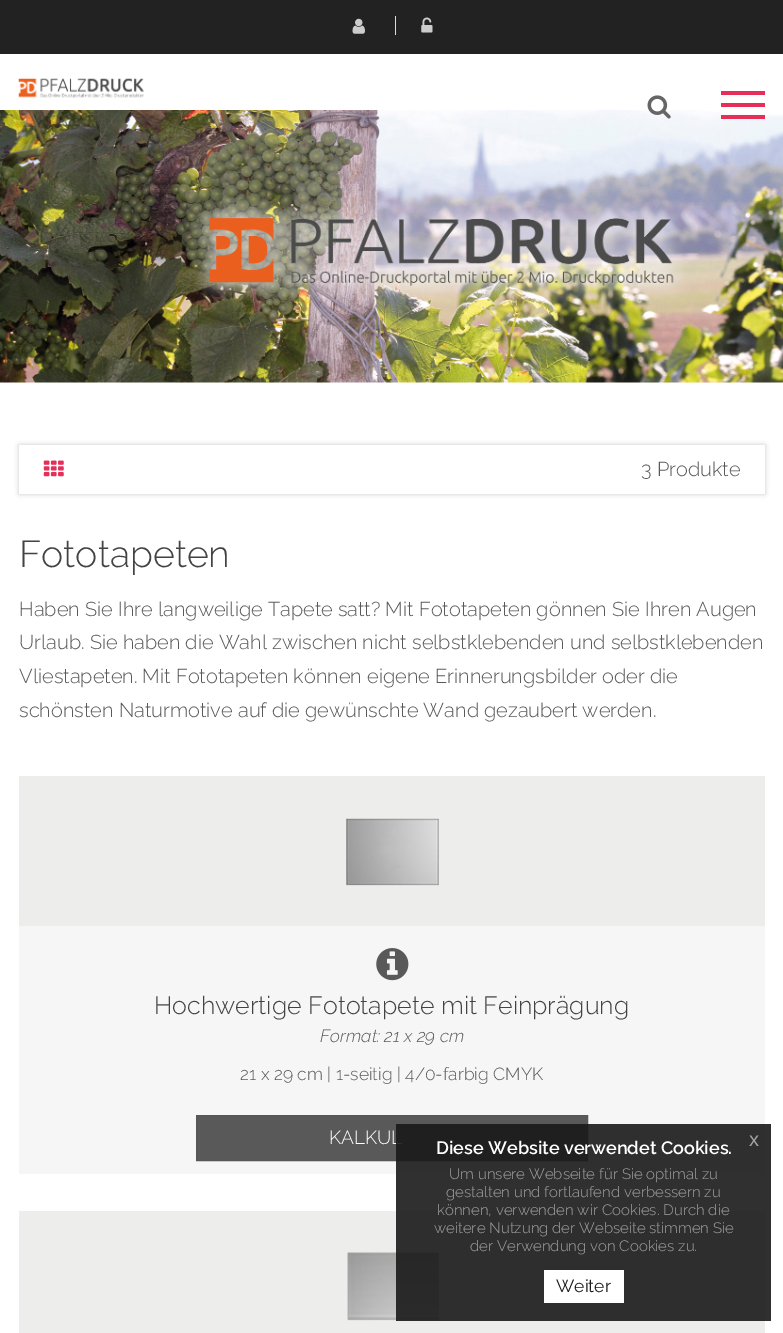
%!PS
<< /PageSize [783 1333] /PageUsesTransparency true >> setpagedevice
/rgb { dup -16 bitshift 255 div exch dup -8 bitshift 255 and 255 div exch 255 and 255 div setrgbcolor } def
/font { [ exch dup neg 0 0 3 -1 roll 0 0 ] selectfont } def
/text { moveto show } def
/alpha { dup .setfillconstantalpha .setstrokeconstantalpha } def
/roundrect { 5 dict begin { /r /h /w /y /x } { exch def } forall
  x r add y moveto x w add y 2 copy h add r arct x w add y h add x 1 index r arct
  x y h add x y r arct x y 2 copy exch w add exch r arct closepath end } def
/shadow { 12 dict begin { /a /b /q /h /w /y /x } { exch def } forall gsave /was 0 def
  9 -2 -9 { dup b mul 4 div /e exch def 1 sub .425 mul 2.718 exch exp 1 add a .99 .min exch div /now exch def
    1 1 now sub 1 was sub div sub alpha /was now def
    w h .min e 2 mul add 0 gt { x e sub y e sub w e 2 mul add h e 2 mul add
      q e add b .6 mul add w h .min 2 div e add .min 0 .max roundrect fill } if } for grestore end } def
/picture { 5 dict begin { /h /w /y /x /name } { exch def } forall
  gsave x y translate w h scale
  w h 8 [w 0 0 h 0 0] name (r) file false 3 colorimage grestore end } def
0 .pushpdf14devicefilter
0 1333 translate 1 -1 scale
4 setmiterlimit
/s1 { /Raleway-Light 20 font 16#595959 rgb } def
/s2 { /Raleway-Light 37.5 font 16#434343 rgb } def
/s3 { /Raleway-Light 25 font 16#434343 rgb } def
/s4 { /Raleway-LightItalic 17.5 font 16#595959 rgb } def
/s5 { /Raleway-Light 17.5 font 16#595959 rgb } def
/s6 { /Raleway-Light 19 font 16#FFFFFF rgb } def
/s7 { /Raleway-SemiBold 18 font 16#FFFFFF rgb } def
/s8 { /LiberationSans-Regular 20 font 16#A2A2A2 rgb } def
/s9 { /Raleway-Light 15 font 16#A2A2A2 rgb } def
/s10 { /Raleway-Regular 17.5 font 16#191919 rgb } def
16#FFFFFF rgb
0 0 783 1333 rectfill
16#222222 rgb
0 0 783 54 rectfill
(pic1.raw) 352 18 13 16 picture
16#DDDDDD rgb
395 16 1 19 rectfill
(pic2.raw) 421 17 12 16 picture
(pic3.raw) 18 78 126 20 picture
(pic5.raw) 0 110 783 273 picture
(pic4.raw) 647 95 24 24 picture
16#E52F58 rgb
721 91 44 4 rectfill
721 103 44 4 rectfill
721 115 44 4 rectfill
gsave
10 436 moveto 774 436 lineto 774 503 lineto 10 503 lineto closepath 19 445 moveto 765 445 lineto 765 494 lineto 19 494 lineto closepath eoclip newpath
16#000000 rgb
19 445 746 49 0 2.5 0.2 shadow
grestore
(pic6.raw) 43 460 21 17 picture
s1
(3 Produkte) 641 476 text
s2
(Fototapeten) 19 567 text
s1
(Haben Sie Ihre langweilige Tapete satt? Mit Fototapeten gönnen Sie Ihren Augen) 19 616 text
(Urlaub. Sie haben die Wahl zwischen nicht selbstklebenden und selbstklebenden) 19 649 text
(Vliestapeten. Mit Fototapeten können eigene Erinnerungsbilder oder die) 19 683 text
(schönsten Naturmotive auf die gewünschte Wand gezaubert werden.) 19 717 text
16#F6F6F6 rgb
19 926 746 248 rectfill
16#EDEDEB rgb
19 776 746 150 rectfill
(pic7.raw) 346 818 93 68 picture
(pic8.raw) 376 948 33 33 picture
s3
(Hochwertige Fototapete mit Feinprägung) 154 1014 text
s4
(Format: 21 x 29 cm) 320 1042 text
s5
(21 x 29 cm | 1-seitig | 4/0-farbig CMYK) 240 1080 text
196.5 1115.5 moveto 587.5 1115.5 lineto 587.5 1160.5 lineto 196.5 1160.5 lineto closepath gsave fill grestore
16#565656 rgb
stroke
s6
(KALKUL) 329 1144 text
16#EDEDEB rgb
19 1211 746 122 rectfill
(pic9.raw) 347 1252 92 69 picture
0.9 alpha
16#191919 rgb
396 1124 375 197 rectfill
1 alpha
s7
(Diese Website verwendet Cookies.) 436 1154 text
s8
(x) 749 1146 text
s9
(Um unsere Webseite für Sie optimal zu) 449 1179 text
(gestalten und fortlaufend verbessern zu) 446 1197 text
(können, verwenden wir Cookies. Durch die) 437 1215 text
(weitere Nutzung der Webseite stimmen Sie) 434 1233 text
(der Verwendung von Cookies zu.) 470 1251 text
16#FFFFFF rgb
544 1270 80 33 rectfill
s10
(Weiter) 556 1292 text
.poppdf14devicefilter showpage
